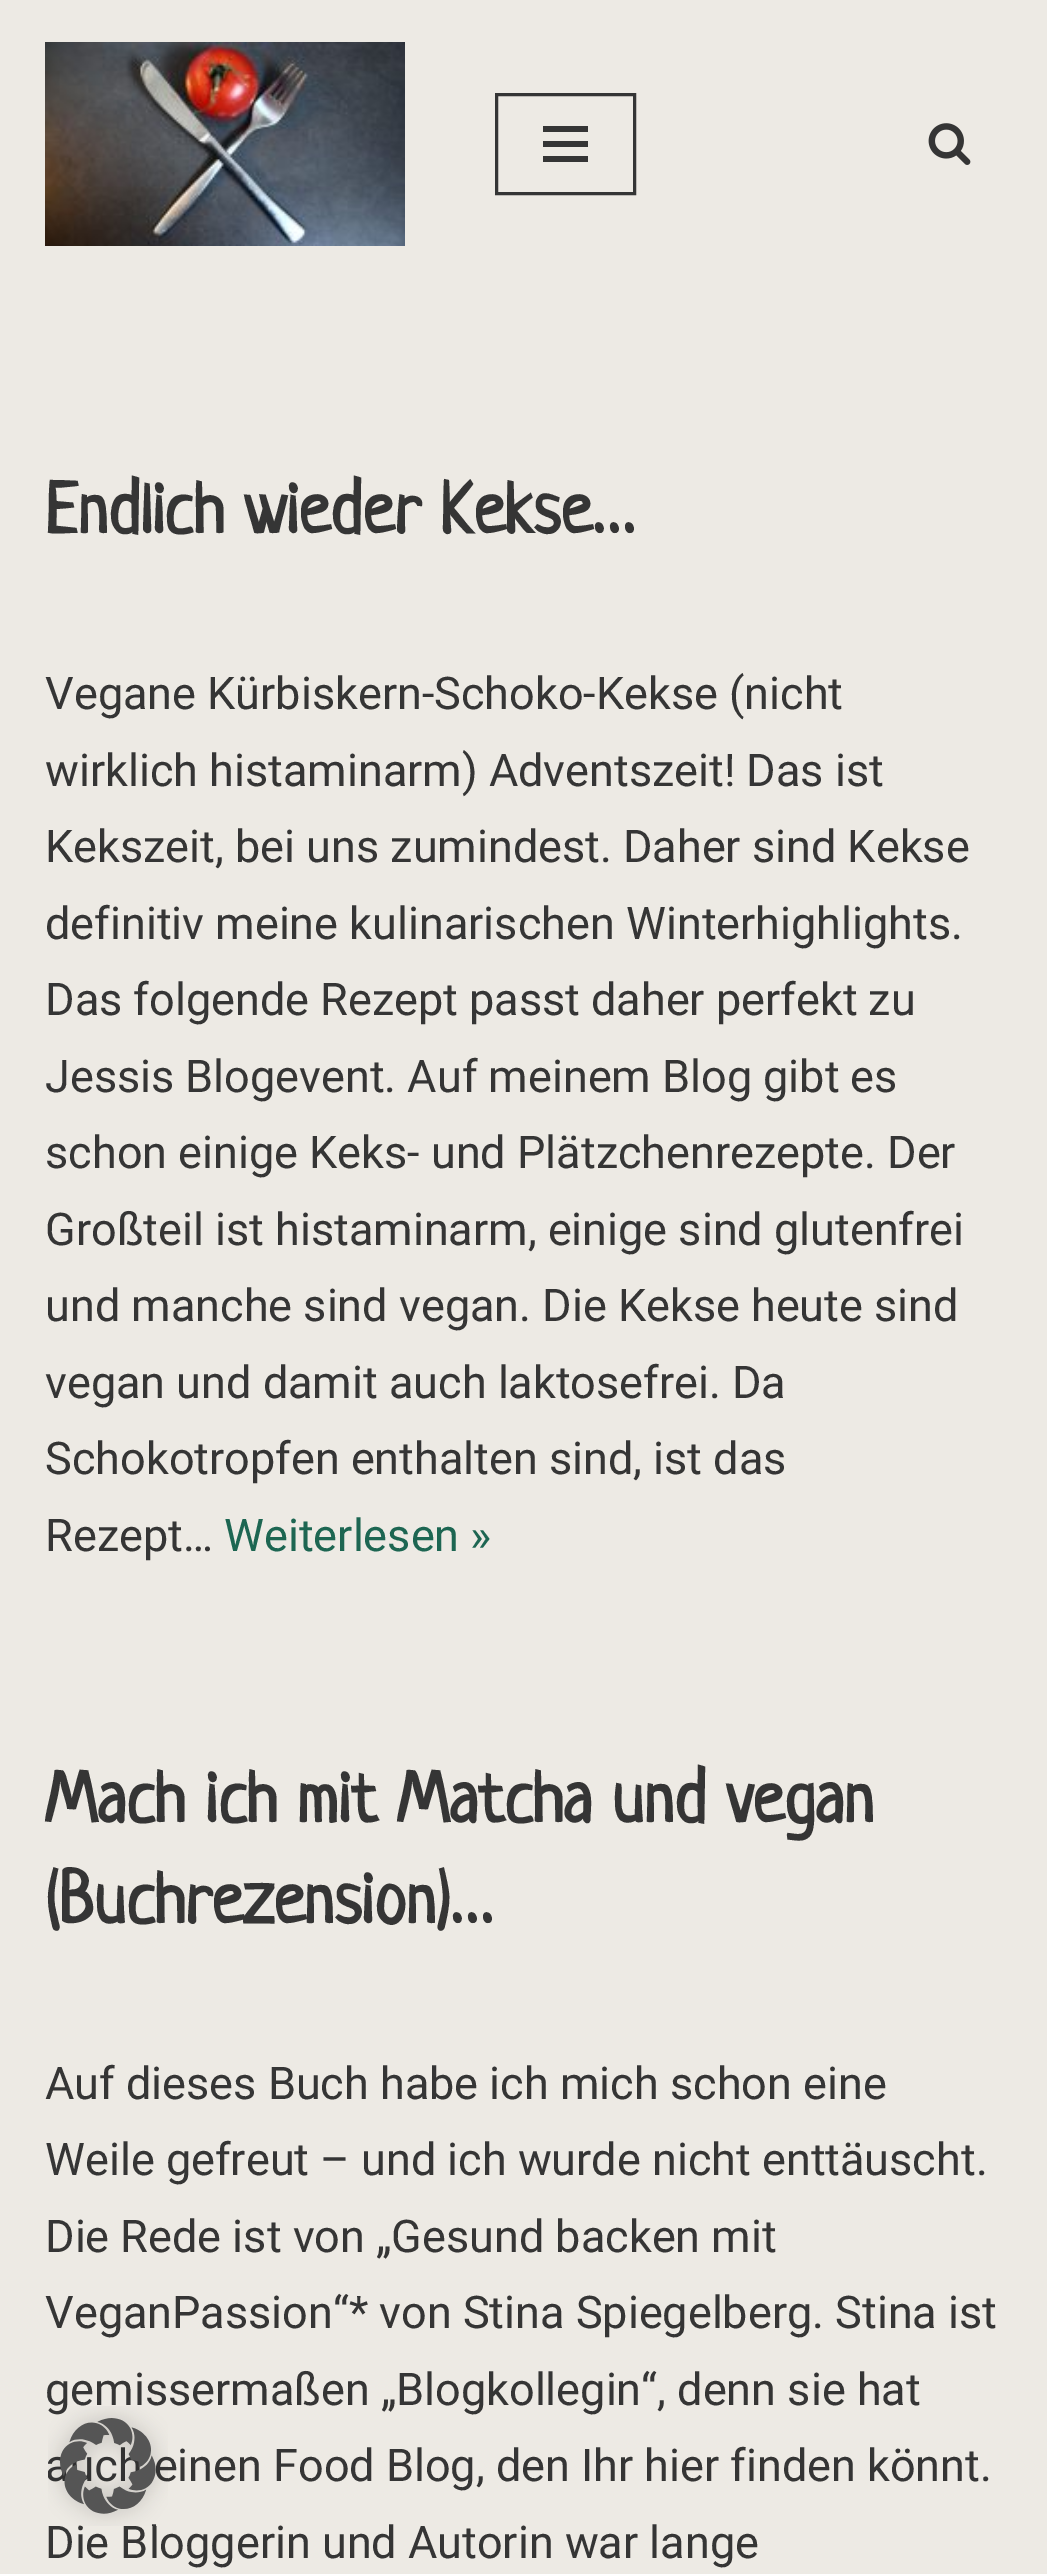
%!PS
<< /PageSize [1047 2574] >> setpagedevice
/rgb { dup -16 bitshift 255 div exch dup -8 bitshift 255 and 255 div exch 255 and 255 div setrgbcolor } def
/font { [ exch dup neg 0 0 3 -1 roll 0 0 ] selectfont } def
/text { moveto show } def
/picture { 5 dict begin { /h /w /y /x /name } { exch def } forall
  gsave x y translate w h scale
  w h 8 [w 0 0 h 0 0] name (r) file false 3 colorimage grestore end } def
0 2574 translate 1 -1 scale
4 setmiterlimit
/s1 { /Neucha-Bold 72 font 16#353535 rgb } def
/s2 { /Roboto-Regular 45 font 16#353535 rgb } def
/s3 { /Roboto-Regular 45 font 16#1D6652 rgb } def
16#EDEAE4 rgb
0 0 1047 2574 rectfill
(pic1.raw) 45 42 360 204 picture
16#353535 rgb
3 setlinewidth
496.5 94.5 138 99 rectstroke
543 126 45 6 rectfill
543 141 45 6 rectfill
543 156 45 6 rectfill
(pic2.raw) 928 123 43 42 picture
s1
(Endlich wieder Kekse…) 45 533 text
s2
(Vegane Kürbiskern-Schoko-Kekse \(nicht) 45 709 text
(wirklich histaminarm\) Adventszeit! Das ist) 45 786 text
(Kekszeit, bei uns zumindest. Daher sind Kekse) 45 862 text
(definitiv meine kulinarischen Winterhighlights.) 45 939 text
(Das folgende Rezept passt daher perfekt zu) 45 1015 text
(Jessis Blogevent. Auf meinem Blog gibt es) 45 1092 text
(schon einige Keks- und Plätzchenrezepte. Der) 45 1168 text
(Großteil ist histaminarm, einige sind glutenfrei) 45 1245 text
(und manche sind vegan. Die Kekse heute sind) 45 1321 text
(vegan und damit auch laktosefrei. Da) 45 1398 text
(Schokotropfen enthalten sind, ist das) 45 1474 text
(Rezept…) 45 1551 text
s3
(Weiterlesen ») 224 1551 text
s1
(Mach ich mit Matcha und vegan) 45 1822 text
(\(Buchrezension\)…) 45 1923 text
s2
(Auf dieses Buch habe ich mich schon eine) 45 2099 text
(Weile gefreut – und ich wurde nicht enttäuscht.) 45 2175 text
(Die Rede ist von „Gesund backen mit) 45 2252 text
(VeganPassion“* von Stina Spiegelberg. Stina ist) 45 2328 text
(gemissermaßen „Blogkollegin“, denn sie hat) 45 2405 text
(ch einen Food Blog, den Ihr hier finden könnt.) 94 2481 text
(Die Bloggerin und Autorin war lange) 45 2558 text
(pic3.raw) 48 2406 120 120 picture
showpage
